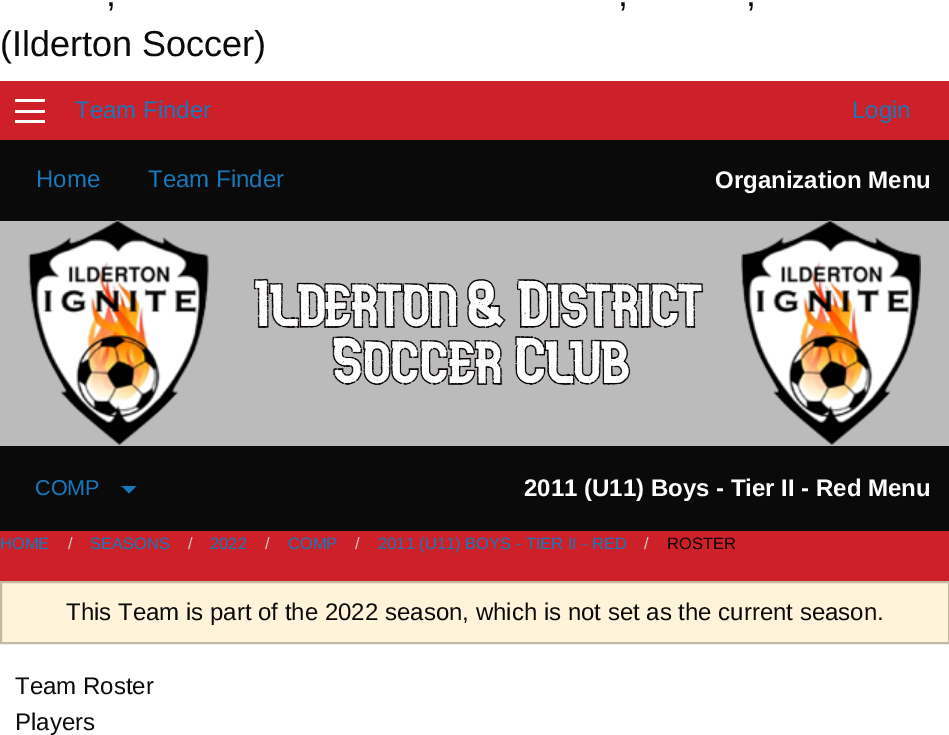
%!PS
<< /PageSize [949 735] >> setpagedevice
/rgb { dup -16 bitshift 255 div exch dup -8 bitshift 255 and 255 div exch 255 and 255 div setrgbcolor } def
/font { [ exch dup neg 0 0 3 -1 roll 0 0 ] selectfont } def
/text { moveto show } def
/picture { 5 dict begin { /h /w /y /x /name } { exch def } forall
  gsave x y translate w h scale
  w h 8 [w 0 0 h 0 0] name (r) file false 3 colorimage grestore end } def
0 735 translate 1 -1 scale
4 setmiterlimit
/s1 { /LiberationSans-Regular 36 font 16#0A0A0A rgb } def
/s2 { /LiberationSans-Regular 24 font 16#1779BA rgb } def
/s3 { /LiberationSans-Bold 24 font 16#FEFEFE rgb } def
/s4 { /LiberationSans-Regular 21.5 font 16#1779BA rgb } def
/s5 { /LiberationSans-Regular 16.5 font 16#1779BA rgb } def
/s6 { /LiberationSans-Regular 16.5 font 16#CACACA rgb } def
/s7 { /LiberationSans-Regular 16.5 font 16#0A0A0A rgb } def
/s8 { /LiberationSans-Regular 24 font 16#0A0A0A rgb } def
16#FFFFFF rgb
0 0 949 735 rectfill
s1
(,) 106 6 text
(,) 618 6 text
(,) 746 6 text
(\(Ilderton Soccer\)) 0 56 text
16#CE2029 rgb
0 81 949 500 rectfill
16#FEFEFE rgb
15 120 30 3 rectfill
15 110 30 3 rectfill
15 99 30 3 rectfill
s2
(Team Finder) 75 118 text
(Login) 852 118 text
16#0A0A0A rgb
0 140 949 81 rectfill
s2
(Home) 36 187 text
(Team Finder) 148 187 text
s3
(Organization Menu) 715 188 text
16#BBBBBB rgb
0 221 949 225 rectfill
(pic1.raw) 28 220 181 225 picture
(pic2.raw) 253 278 451 107 picture
(pic3.raw) 741 220 180 225 picture
16#0A0A0A rgb
0 446 949 85 rectfill
s4
(COMP) 35 495 text
121.5 486 moveto 136.5 486 lineto 129 493.5 lineto closepath fill
s3
(2011 \(U11\) Boys - Tier II - Red Menu) 524 496 text
s5
(HOME) 0 549 text
s6
(/) 68 549 text
s5
(SEASONS) 90 549 text
s6
(/) 188 549 text
s5
(2022) 210 549 text
s6
(/) 265 549 text
s5
(COMP) 288 549 text
s6
(/) 355 549 text
s5
(2011 \(U11\) BOYS - TIER II - RED) 378 549 text
s6
(/) 644 549 text
s7
(ROSTER) 667 549 text
16#FFF3D9 rgb
1 582 moveto 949 582 lineto 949 643 lineto 1 643 lineto closepath gsave fill grestore
16#C2B9A5 rgb
2 setlinewidth
stroke
s8
(This Team is part of the 2022 season, which is not set as the current season.) 66 620 text
(Team Roster) 15 694 text
(Players) 15 730 text
showpage
